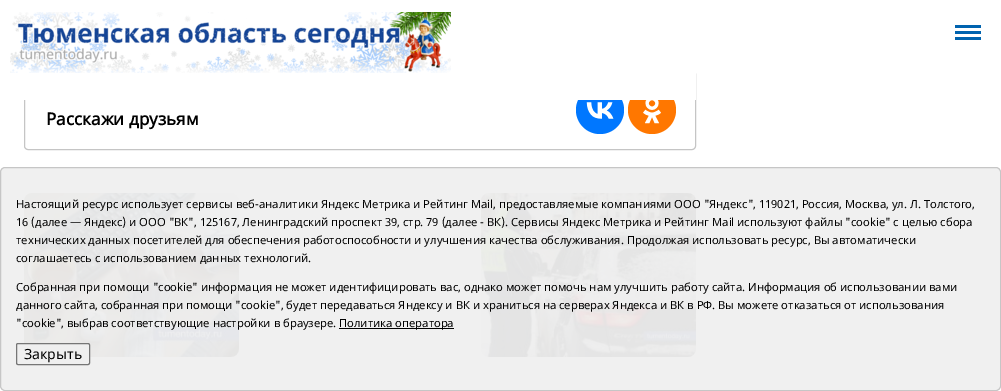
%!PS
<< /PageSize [1001 391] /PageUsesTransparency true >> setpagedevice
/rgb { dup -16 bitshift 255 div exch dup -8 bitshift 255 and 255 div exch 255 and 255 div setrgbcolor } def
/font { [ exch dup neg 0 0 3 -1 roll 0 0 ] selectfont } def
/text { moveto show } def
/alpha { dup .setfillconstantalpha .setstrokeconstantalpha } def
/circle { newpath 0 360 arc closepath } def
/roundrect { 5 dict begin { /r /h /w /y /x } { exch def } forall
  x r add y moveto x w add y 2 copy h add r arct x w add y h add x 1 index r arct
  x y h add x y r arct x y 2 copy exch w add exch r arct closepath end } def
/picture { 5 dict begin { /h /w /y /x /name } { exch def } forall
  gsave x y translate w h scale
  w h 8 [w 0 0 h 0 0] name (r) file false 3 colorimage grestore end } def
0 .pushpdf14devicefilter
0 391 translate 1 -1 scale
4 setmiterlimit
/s1 { /NotoSans-Bold 17 font 16#000000 rgb } def
/s2 { /NotoSans-Regular 11.2 font 16#000000 rgb } def
/s3 { /NotoSans-Regular 14 font 16#000000 rgb } def
16#FFFFFF rgb
0 0 1001 391 rectfill
16#C5C5C5 rgb
24.5 70.5 671 79 3.5 roundrect stroke
16#0077FF rgb
600 110 24 circle fill
16#FF7700 rgb
652 110 24 circle fill
16#FFFFFF rgb
24 70 672 30 rectfill
(pic1.raw) 10 12 441 61 picture
(pic2.raw) 955 25 26 15 picture
s1
(Расскажи друзьям) 46 125 text
(pic3.raw) 586 102 28 17 picture
(pic4.raw) 643 100 18 24 picture
(pic5.raw) 24 193 215 164 picture
(pic6.raw) 481 193 215 164 picture
0.95 alpha
16#EFEFEF rgb
0.5 167.5 1000 223 4.5 roundrect fill
1 alpha
16#C6C6C6 rgb
0.5 167.5 1000 223 4.5 roundrect stroke
s2
(Настоящий ресурс использует сервисы веб-аналитики Яндекс Метрика и Рейтинг Mail, предоставляемые компаниями ООО "Яндекс", 119021, Россия, Москва, ул. Л. Толстого,) 16 208 text
(16 \(далее — Яндекс\) и ООО "ВК", 125167, Ленинградский проспект 39, стр. 79 \(далее - ВК\). Сервисы Яндекс Метрика и Рейтинг Mail используют файлы "cookie" с целью сбора) 16 226 text
(технических данных посетителей для обеспечения работоспособности и улучшения качества обслуживания. Продолжая использовать ресурс, Вы автоматически) 16 244 text
(соглашаетесь с использованием данных технологий.) 16 262 text
(Собранная при помощи "cookie" информация не может идентифицировать вас, однако может помочь нам улучшить работу сайта. Информация об использовании вами) 16 291 text
(данного сайта, собранная при помощи "cookie", будет передаваться Яндексу и ВК и храниться на серверах Яндекса и ВК в РФ. Вы можете отказаться от использования) 16 309 text
("cookie", выбрав соответствующие настройки в браузере.) 16 327 text
339 328 115 1 rectfill
(Политика оператора) 339 327 text
16#EFEFEF rgb
16.5 343.5 73 21 1.5 roundrect gsave fill grestore
16#767676 rgb
stroke
s3
(Закрыть) 24 359 text
.poppdf14devicefilter showpage
